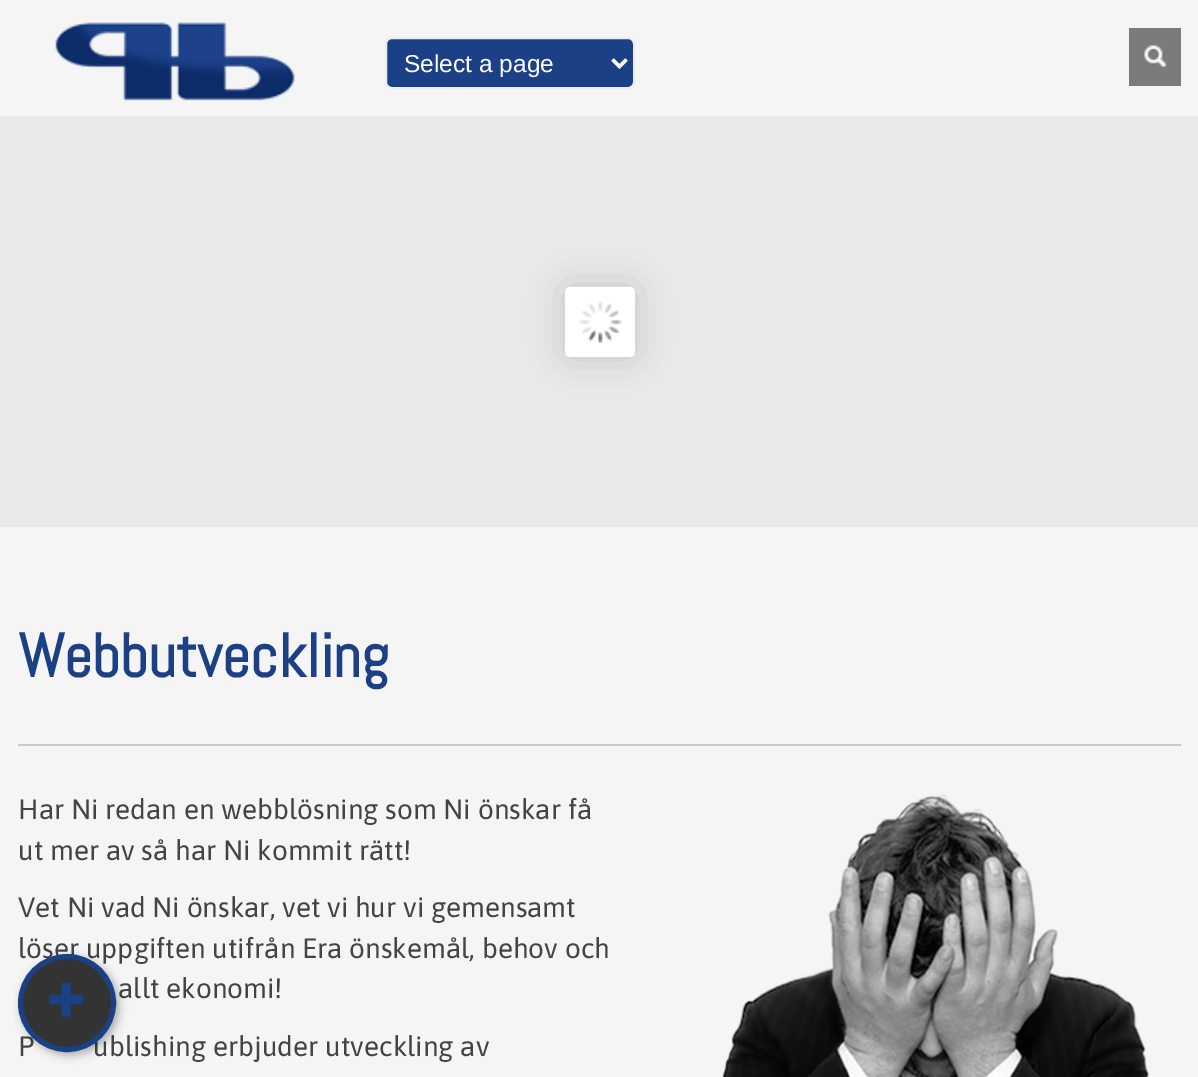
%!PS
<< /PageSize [1198 1077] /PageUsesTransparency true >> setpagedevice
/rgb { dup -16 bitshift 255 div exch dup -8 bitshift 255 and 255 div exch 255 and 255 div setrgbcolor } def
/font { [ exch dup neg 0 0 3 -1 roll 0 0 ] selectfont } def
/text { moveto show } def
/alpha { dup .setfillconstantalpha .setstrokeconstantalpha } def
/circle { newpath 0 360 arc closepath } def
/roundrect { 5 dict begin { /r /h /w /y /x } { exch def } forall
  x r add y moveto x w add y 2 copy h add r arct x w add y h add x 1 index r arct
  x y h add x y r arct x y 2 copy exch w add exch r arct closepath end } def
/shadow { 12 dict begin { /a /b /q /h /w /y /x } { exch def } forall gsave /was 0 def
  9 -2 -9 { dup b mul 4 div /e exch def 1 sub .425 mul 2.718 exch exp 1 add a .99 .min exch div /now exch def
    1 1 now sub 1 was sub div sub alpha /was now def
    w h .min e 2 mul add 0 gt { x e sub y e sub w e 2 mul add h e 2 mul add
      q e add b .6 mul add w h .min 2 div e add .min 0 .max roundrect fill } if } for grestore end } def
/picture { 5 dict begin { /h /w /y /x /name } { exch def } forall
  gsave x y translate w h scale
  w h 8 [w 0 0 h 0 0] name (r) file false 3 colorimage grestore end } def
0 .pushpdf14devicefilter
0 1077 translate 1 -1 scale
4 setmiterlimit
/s1 { /LiberationSans-Regular 24.5 font 16#FFFFFF rgb } def
/s2 { /Abel-Bold 61.5 font 16#1B4085 rgb } def
/s3 { /Asap-Regular 28 font 16#444444 rgb } def
16#F5F5F5 rgb
0 0 1198 1077 rectfill
(pic1.raw) 55 22 240 79 picture
16#1B4085 rgb
386 38 248 50 6 roundrect gsave fill grestore
16#ECECEC rgb
2 setlinewidth
stroke
16#FFFFFF rgb
3.5 setlinewidth
612.5 59.5 moveto 619.5 66.5 lineto 626.5 59.5 lineto stroke
s1
(Select a page) 404 72 text
16#7B7B7B rgb
1129 28 52 58 rectfill
(pic2.raw) 1144 45 23 22 picture
16#E9E9E9 rgb
0 116 1198 411 rectfill
16#000000 rgb
565 287 70 70 5 17.5 0.15 shadow
16#FFFFFF rgb
565 287 70 70 5 roundrect fill
(pic3.raw) 579 301 43 42 picture
16#CBCBCB rgb
18 744 1163 2 rectfill
s2
(Webbutveckling) 18 677 text
s3
(Har Ni redan en webblösning som Ni önskar få) 18 819 text
(pic4.raw) 722 794 427 283 picture
(ut mer av så har Ni kommit rätt!) 18 860 text
(Vet Ni vad Ni önskar, vet vi hur vi gemensamt) 18 917 text
(löser uppgiften utifrån Era önskemål, behov och) 18 958 text
(allt ekonomi!) 118 998 text
(P) 18 1056 text
(ublishing erbjuder utveckling av) 93 1056 text
16#000000 rgb
21 957 98 98 49 4.5 0.3 shadow
16#333333 rgb
67 1003 46.5 circle gsave fill grestore
16#1B4185 rgb
5 setlinewidth
stroke
(pic5.raw) 49 982 35 35 picture
.poppdf14devicefilter showpage
